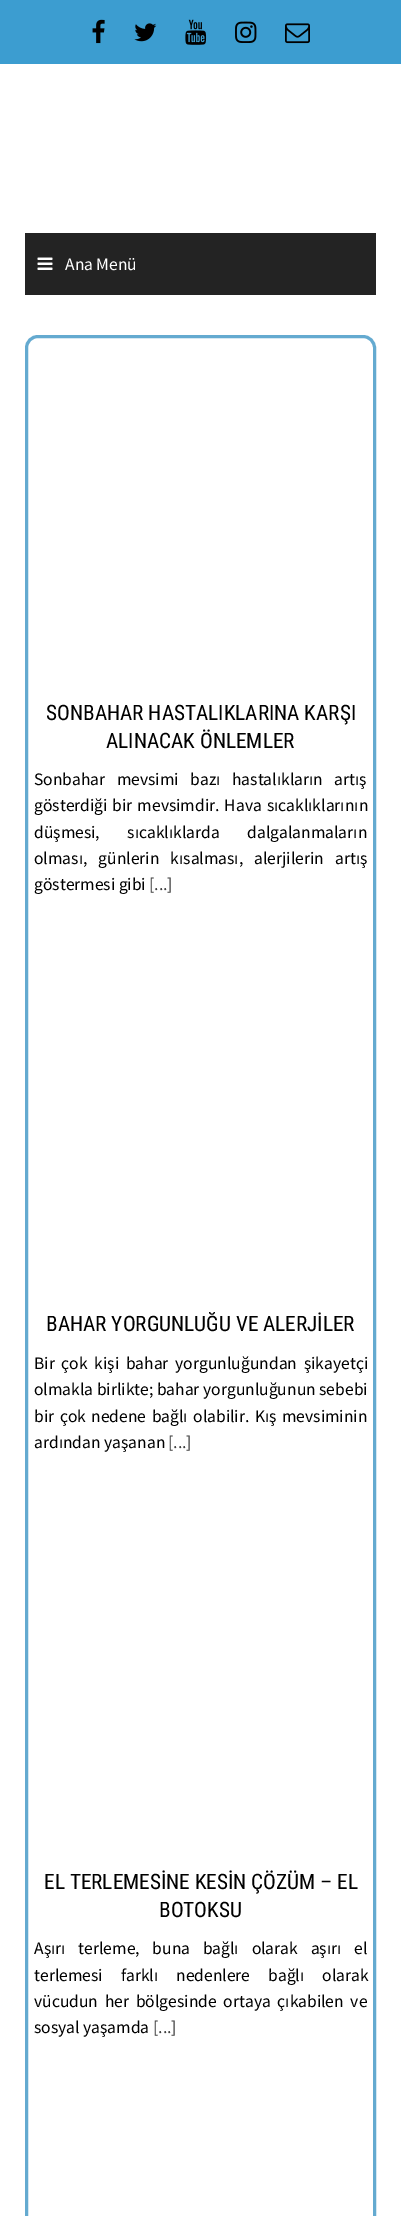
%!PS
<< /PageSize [401 2216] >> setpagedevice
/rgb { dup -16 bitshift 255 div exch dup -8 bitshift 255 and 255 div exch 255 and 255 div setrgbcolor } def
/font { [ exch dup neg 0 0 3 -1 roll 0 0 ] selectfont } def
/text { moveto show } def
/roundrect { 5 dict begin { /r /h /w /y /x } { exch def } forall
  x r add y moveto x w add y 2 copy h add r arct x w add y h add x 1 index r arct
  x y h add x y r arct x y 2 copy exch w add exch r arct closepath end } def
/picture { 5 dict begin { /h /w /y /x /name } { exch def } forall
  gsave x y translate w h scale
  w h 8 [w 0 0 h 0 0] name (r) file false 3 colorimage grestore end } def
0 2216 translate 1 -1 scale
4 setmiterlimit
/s1 { /SourceSansPro-Regular 17.5 font 16#FFFFFF rgb } def
/s2 { /RobotoCondensed-Regular 21.25 font 16#000000 rgb } def
/s3 { /SourceSansPro-Regular 17.5 font 16#000000 rgb } def
/s4 { /SourceSansPro-Regular 17.5 font 16#404040 rgb } def
16#FFFFFF rgb
0 0 401 2216 rectfill
16#3C9DD0 rgb
0 0 401 64 rectfill
(pic1.raw) 92 19 13 25 picture
(pic2.raw) 134 23 23 19 picture
(pic3.raw) 185 19 22 26 picture
(pic4.raw) 235 21 22 22 picture
(pic5.raw) 285 23 25 21 picture
16#232323 rgb
25 233 351 62 rectfill
(pic6.raw) 37 257 16 13 picture
s1
(Ana Menü) 65 270 text
16#64AAD0 rgb
3 setlinewidth
26.5 336.5 348 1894 11.5 roundrect stroke
s2
(SONBAHAR HASTALIKLARINA KARŞI) 46 720 text
(ALINACAK ÖNLEMLER) 106 748 text
/SourceSansPro-Regular 17.5 font
34 785 moveto 8 0 32 (Sonbahar mevsimi bazı hastalıkların artış) widthshow
34 811 moveto 1.5 0 32 (gösterdiği bir mevsimdir. Hava sıcaklıklarının) widthshow
34 838 moveto 24 0 32 (düşmesi, sıcaklıklarda dalgalanmaların) widthshow
34 864 moveto 7.5 0 32 (olması, günlerin kısalması, alerjilerin artış) widthshow
(göstermesi gibi) 34 890 text
s4
([...]) 149 890 text
s2
(BAHAR YORGUNLUĞU VE ALERJİLER) 46 1331 text
/SourceSansPro-Regular 17.5 font
34 1369 moveto 3.25 0 32 (Bir çok kişi bahar yorgunluğundan şikayetçi) widthshow
(olmakla birlikte; bahar yorgunluğunun sebebi) 34 1395 text
34 1422 moveto 2 0 32 (bir çok nedene bağlı olabilir. Kış mevsiminin) widthshow
(ardından yaşanan) 34 1448 text
s4
([...]) 168 1448 text
s2
(EL TERLEMESİNE KESİN ÇÖZÜM – EL) 44 1889 text
(BOTOKSU) 159 1917 text
/SourceSansPro-Regular 17.5 font
34 1954 moveto 9.25 0 32 (Aşırı terleme, buna bağlı olarak aşırı el) widthshow
34 1981 moveto 14.5 0 32 (terlemesi farklı nedenlere bağlı olarak) widthshow
34 2007 moveto 3.25 0 32 (vücudun her bölgesinde ortaya çıkabilen ve) widthshow
(sosyal yaşamda) 34 2033 text
s4
([...]) 153 2033 text
showpage
